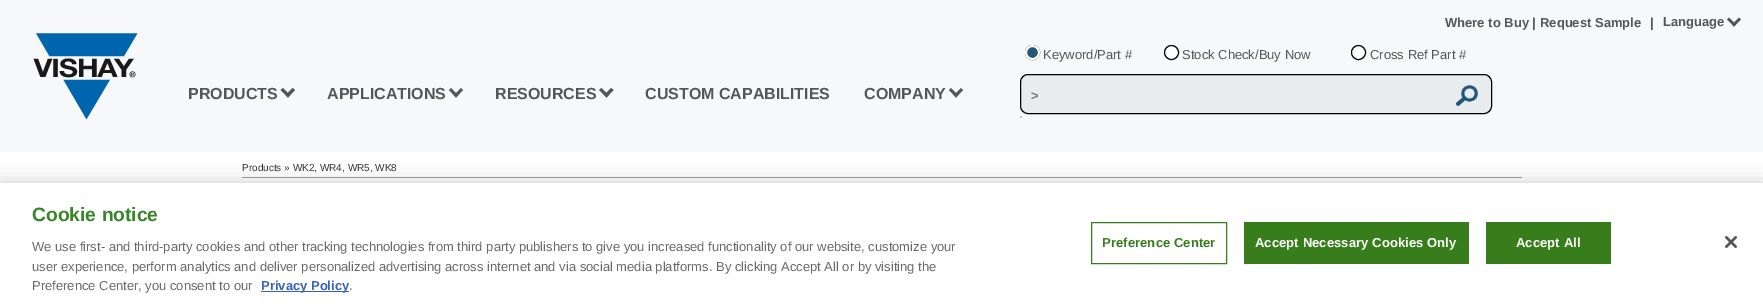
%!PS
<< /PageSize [1763 306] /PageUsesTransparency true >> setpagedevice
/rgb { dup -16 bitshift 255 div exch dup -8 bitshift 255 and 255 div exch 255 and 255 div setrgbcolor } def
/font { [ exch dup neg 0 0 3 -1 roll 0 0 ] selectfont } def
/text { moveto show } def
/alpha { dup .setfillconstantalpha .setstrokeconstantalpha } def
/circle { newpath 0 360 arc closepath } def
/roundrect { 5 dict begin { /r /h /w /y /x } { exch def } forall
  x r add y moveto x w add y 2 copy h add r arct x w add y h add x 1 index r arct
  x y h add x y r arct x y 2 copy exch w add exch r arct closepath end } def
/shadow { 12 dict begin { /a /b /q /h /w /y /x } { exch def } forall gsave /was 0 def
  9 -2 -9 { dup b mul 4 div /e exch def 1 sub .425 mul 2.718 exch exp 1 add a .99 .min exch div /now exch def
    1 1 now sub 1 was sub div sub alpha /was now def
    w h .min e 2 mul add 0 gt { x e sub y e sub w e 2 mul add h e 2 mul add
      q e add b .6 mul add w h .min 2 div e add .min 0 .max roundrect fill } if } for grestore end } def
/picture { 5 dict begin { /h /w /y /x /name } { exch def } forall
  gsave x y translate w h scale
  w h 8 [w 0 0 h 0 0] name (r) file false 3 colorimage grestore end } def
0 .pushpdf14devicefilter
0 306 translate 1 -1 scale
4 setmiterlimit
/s1 { /LiberationSans-Bold 13 font 16#53565A rgb } def
/s2 { /LiberationSans-Bold 16 font 16#53565A rgb } def
/s3 { /LiberationSans-Regular 13 font 16#53565A rgb } def
/s4 { /LiberationSans-Bold 13 font 16#757575 rgb } def
/s5 { /LiberationSans-Regular 10 font 16#333333 rgb } def
/s6 { /LiberationSans-Bold 19.25 font 16#378528 rgb } def
/s7 { /LiberationSans-Regular 13 font 16#696969 rgb } def
/s8 { /LiberationSans-Bold 13 font 16#3860BE rgb } def
16#FFFFFF rgb
0 0 1763 306 rectfill
16#F6F8F9 rgb
0 0 1763 152 rectfill
s1
(Where to Buy |) 1445 27 text
(Request Sample) 1540 27 text
(|) 1650 27 text
(Language) 1663 26 text
1739 17.5 moveto 1741 19.5 lineto 1734 26.5 lineto 1732 24.5 lineto closepath fill
1729 17.5 moveto 1736 24.5 lineto 1734 26.5 lineto 1727 19.5 lineto closepath fill
(pic1.raw) 33 33 105 87 picture
s2
(PRODUCTS) 188 99 text
292.5 88 moveto 295 90 lineto 288 97.5 lineto 285.5 95 lineto closepath fill
283 88 moveto 290 95 lineto 288 97.5 lineto 280.5 90 lineto closepath fill
(APPLICATIONS) 327 99 text
461 88 moveto 463 90 lineto 456 97.5 lineto 454 95 lineto closepath fill
451 88 moveto 458 95 lineto 456 97.5 lineto 449 90 lineto closepath fill
(RESOURCES) 495 99 text
611 88 moveto 613.5 90 lineto 606.5 97.5 lineto 604 95 lineto closepath fill
601.5 88 moveto 608.5 95 lineto 606.5 97.5 lineto 599 90 lineto closepath fill
(CUSTOM CAPABILITIES) 645 99 text
(COMPANY) 864 99 text
961 88 moveto 963 90 lineto 956 97.5 lineto 954 95 lineto closepath fill
951 88 moveto 958 95 lineto 956 97.5 lineto 949 90 lineto closepath fill
16#000000 rgb
1032.5 52.5 7 circle stroke
16#225678 rgb
1032.5 52.5 6.5 circle gsave fill grestore
16#FFFFFF rgb
2 setlinewidth
stroke
s3
(Keyword/Part #) 1043 59 text
16#FFFFFF rgb
1171.5 52.5 7 circle gsave fill grestore
16#000000 rgb
1 setlinewidth
stroke
s3
(Stock Check/Buy Now) 1182 59 text
16#FFFFFF rgb
1358.5 52.5 7 circle gsave fill grestore
16#000000 rgb
stroke
s3
(Cross Ref Part #) 1370 59 text
16#E8ECED rgb
1020.5 74.5 471 39 7.5 roundrect gsave fill grestore
16#000000 rgb
stroke
s4
(>) 1031 100 text
(pic2.raw) 1456 85 22 21 picture
16#AED0EA rgb
1020 116 2 2 rectfill
16#A2A2A2 rgb
242 177 1280 1 rectfill
s5
(Products » WK2, WR4, WR5, WK8) 242 171 text
16#000000 rgb
0 183 1763 123 0 9 0.2 shadow
16#FFFFFF rgb
0 183 1763 123 rectfill
s6
(Cookie notice) 32 221 text
s7
(We use first- and third-party cookies and other tracking technologies from third party publishers to give you increased functionality of our website, customize your) 32 251 text
(user experience, perform analytics and deliver personalized advertising across internet and via social media platforms. By clicking Accept All or by visiting the) 32 271 text
(Preference Center, you consent to our) 32 290 text
16#3860BE rgb
261 291 88 1 rectfill
s8
(Privacy Policy) 261 290 text
s7
(.) 349 290 text
16#387D1C rgb
1091.5 222.5 135 41 rectstroke
/LiberationSans-Bold 13 font
1102 247 moveto 0.1 0 (Preference Center) ashow
1244 222 225 42 rectfill
16#FFFFFF rgb
1255 247 moveto 0.1 0 (Accept Necessary Cookies Only) ashow
16#387D1C rgb
1486 222 125 42 rectfill
16#FFFFFF rgb
1516 247 moveto 0.1 0 (Accept All) ashow
(pic3.raw) 1725 236 12 12 picture
.poppdf14devicefilter showpage
